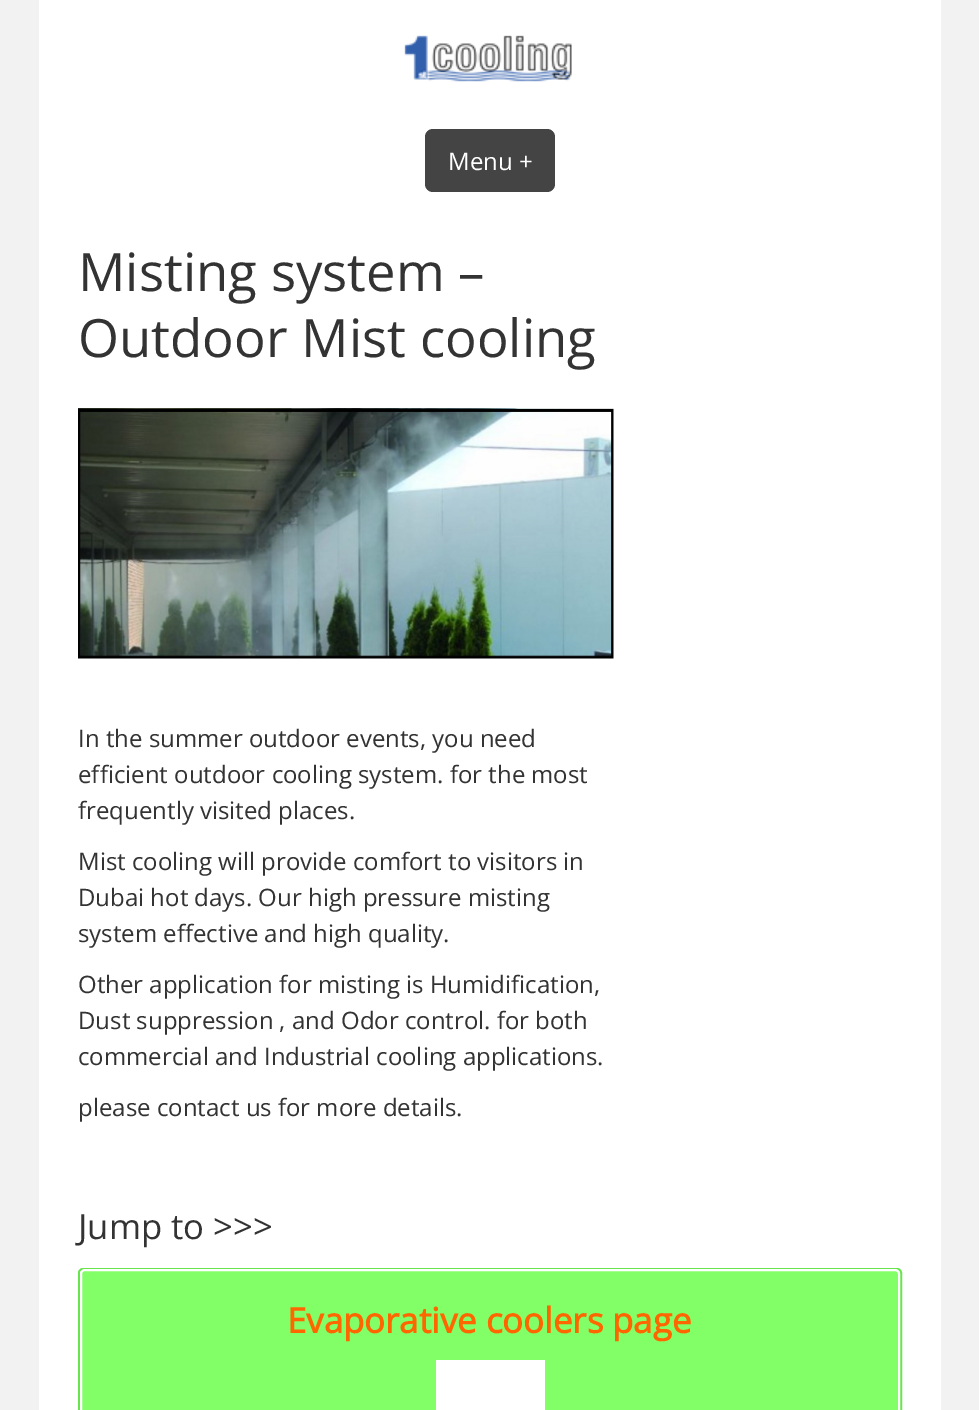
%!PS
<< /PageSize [979 1410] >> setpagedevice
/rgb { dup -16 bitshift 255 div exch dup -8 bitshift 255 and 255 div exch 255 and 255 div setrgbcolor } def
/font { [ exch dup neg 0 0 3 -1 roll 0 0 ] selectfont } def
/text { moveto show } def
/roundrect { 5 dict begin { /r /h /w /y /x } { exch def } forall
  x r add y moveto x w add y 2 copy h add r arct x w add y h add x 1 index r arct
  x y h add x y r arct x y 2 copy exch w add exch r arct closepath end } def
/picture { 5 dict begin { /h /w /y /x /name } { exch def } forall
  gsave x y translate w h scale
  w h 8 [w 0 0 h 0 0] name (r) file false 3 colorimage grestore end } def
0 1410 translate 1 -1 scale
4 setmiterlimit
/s1 { /OpenSans-Regular 24 font 16#FFFFFF rgb } def
/s2 { /OpenSans-Regular 52.75 font 16#333333 rgb } def
/s3 { /OpenSans-Regular 24 font 16#333333 rgb } def
/s4 { /OpenSans-Regular 34.75 font 16#333333 rgb } def
/s5 { /OpenSans-Bold 34.75 font 16#FF6600 rgb } def
16#F2F2F2 rgb
0 0 979 1410 rectfill
16#FFFFFF rgb
39 0 902 1410 rectfill
(pic1.raw) 404 35 168 47 picture
16#444444 rgb
425 129 130 63 8 roundrect fill
s1
(Menu +) 448 170 text
s2
(Misting system –) 78 291 text
(Outdoor Mist cooling) 78 357 text
(pic2.raw) 78 408 536 251 picture
s3
(In the summer outdoor events, you need) 78 747 text
(efficient outdoor cooling system. for the most) 78 783 text
(frequently visited places.) 78 819 text
(Mist cooling will provide comfort to visitors in) 78 870 text
(Dubai hot days. Our high pressure misting) 78 906 text
(system effective and high quality.) 78 942 text
(Other application for misting is Humidification,) 78 993 text
(Dust suppression , and Odor control. for both) 78 1029 text
(commercial and Industrial cooling applications.) 78 1065 text
(please contact us for more details.) 78 1116 text
s4
(Jump to >>>) 78 1239 text
16#68E54C rgb
2 setlinewidth
79 1269 822 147 4 roundrect stroke
16#82FF66 rgb
81 1270 818 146 4 roundrect gsave fill grestore
16#FFFFFF rgb
stroke
s5
(Evaporative coolers page) 287 1333 text
16#FFFFFF rgb
436 1360 109 50 rectfill
showpage
